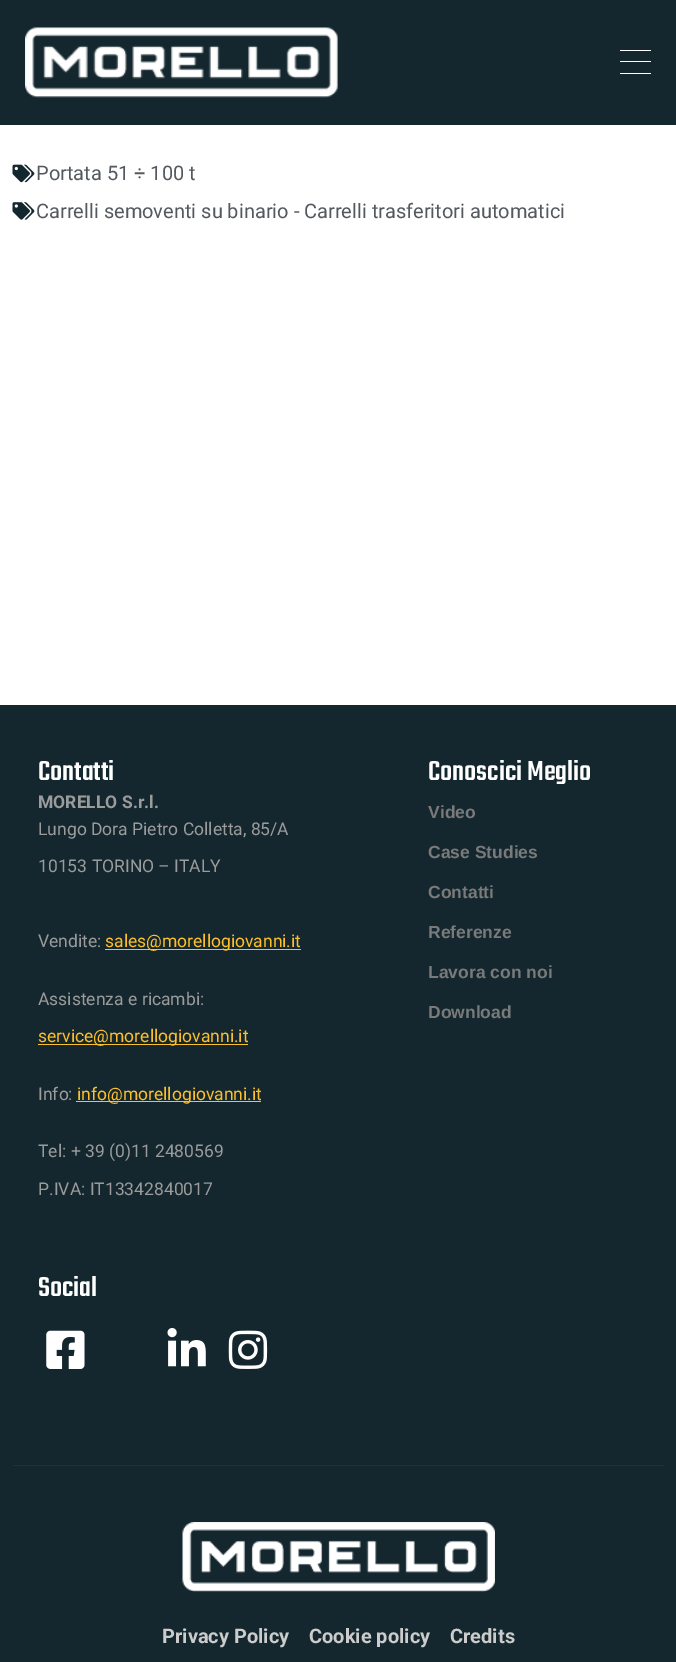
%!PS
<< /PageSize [676 1662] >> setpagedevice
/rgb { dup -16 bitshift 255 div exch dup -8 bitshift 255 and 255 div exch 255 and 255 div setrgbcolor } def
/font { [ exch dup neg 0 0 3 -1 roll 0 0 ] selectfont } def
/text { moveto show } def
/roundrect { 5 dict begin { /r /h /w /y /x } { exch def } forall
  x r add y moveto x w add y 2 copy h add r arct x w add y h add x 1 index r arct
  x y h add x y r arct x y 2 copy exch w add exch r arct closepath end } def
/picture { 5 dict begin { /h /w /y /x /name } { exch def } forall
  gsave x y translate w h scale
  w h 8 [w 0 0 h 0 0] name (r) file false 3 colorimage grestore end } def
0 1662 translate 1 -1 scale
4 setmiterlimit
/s1 { /Roboto-Regular 20 font 16#54595F rgb } def
/s2 { /Teko-Medium 30 font 16#FFFFFF rgb } def
/s3 { /Roboto-Bold 17.5 font 16#9B9B9B rgb } def
/s4 { /Roboto-Regular 17.5 font 16#9B9B9B rgb } def
/s5 { /Roboto-Regular 17.5 font 16#FEC02A rgb } def
/s6 { /LiberationSans-Bold 17.5 font 16#7A7A7A rgb } def
/s7 { /Roboto-Bold 20 font 16#CCCCCC rgb } def
16#FFFFFF rgb
0 0 676 1662 rectfill
16#14272E rgb
0 0 676 125 rectfill
(pic1.raw) 25 27 313 71 picture
16#FFFFFF rgb
620 61 31 1 0.5 roundrect fill
620 50 31 1 0.5 roundrect fill
620 73 31 1 0.5 roundrect fill
(pic2.raw) 12 164 23 19 picture
s1
(Portata 51 ÷ 100 t) 36 180 text
(pic3.raw) 12 202 23 18 picture
(Carrelli semoventi su binario - Carrelli trasferitori automatici) 36 218 text
16#14272E rgb
0 705 676 957 rectfill
s2
(Contatti) 38 780 text
s3
(MORELLO S.r.l.) 38 808 text
s4
(Lungo Dora Pietro Colletta, 85/A) 38 835 text
(10153 TORINO – ITALY) 38 872 text
(Vendite:) 38 947 text
16#FEC02A rgb
105 949 196 1 rectfill
(sales@morellogiovanni.it) 105 947 text
s4
(Assistenza e ricambi:) 38 1005 text
16#FEC02A rgb
38 1044 210 1 rectfill
(service@morellogiovanni.it) 38 1042 text
s4
(Info:) 38 1100 text
16#FEC02A rgb
76 1101 185 1 rectfill
(info@morellogiovanni.it) 77 1100 text
s4
(Tel: + 39 \(0\)11 2480569) 38 1157 text
(P.IVA: IT13342840017) 38 1195 text
s2
(Conoscici Meglio) 428 780 text
s6
(Video) 428 818 text
(Case Studies) 428 858 text
(Contatti) 428 898 text
(Referenze) 428 938 text
(Lavora con noi) 428 978 text
(Download) 428 1018 text
s2
(Social) 38 1296 text
(pic4.raw) 46 1330 39 39 picture
(pic5.raw) 167 1328 39 39 picture
(pic6.raw) 228 1330 40 39 picture
16#203238 rgb
13 1465 651 1 rectfill
(pic7.raw) 182 1522 313 70 picture
s7
(Privacy Policy) 162 1643 text
(Cookie policy) 309 1643 text
(Credits) 450 1643 text
showpage
